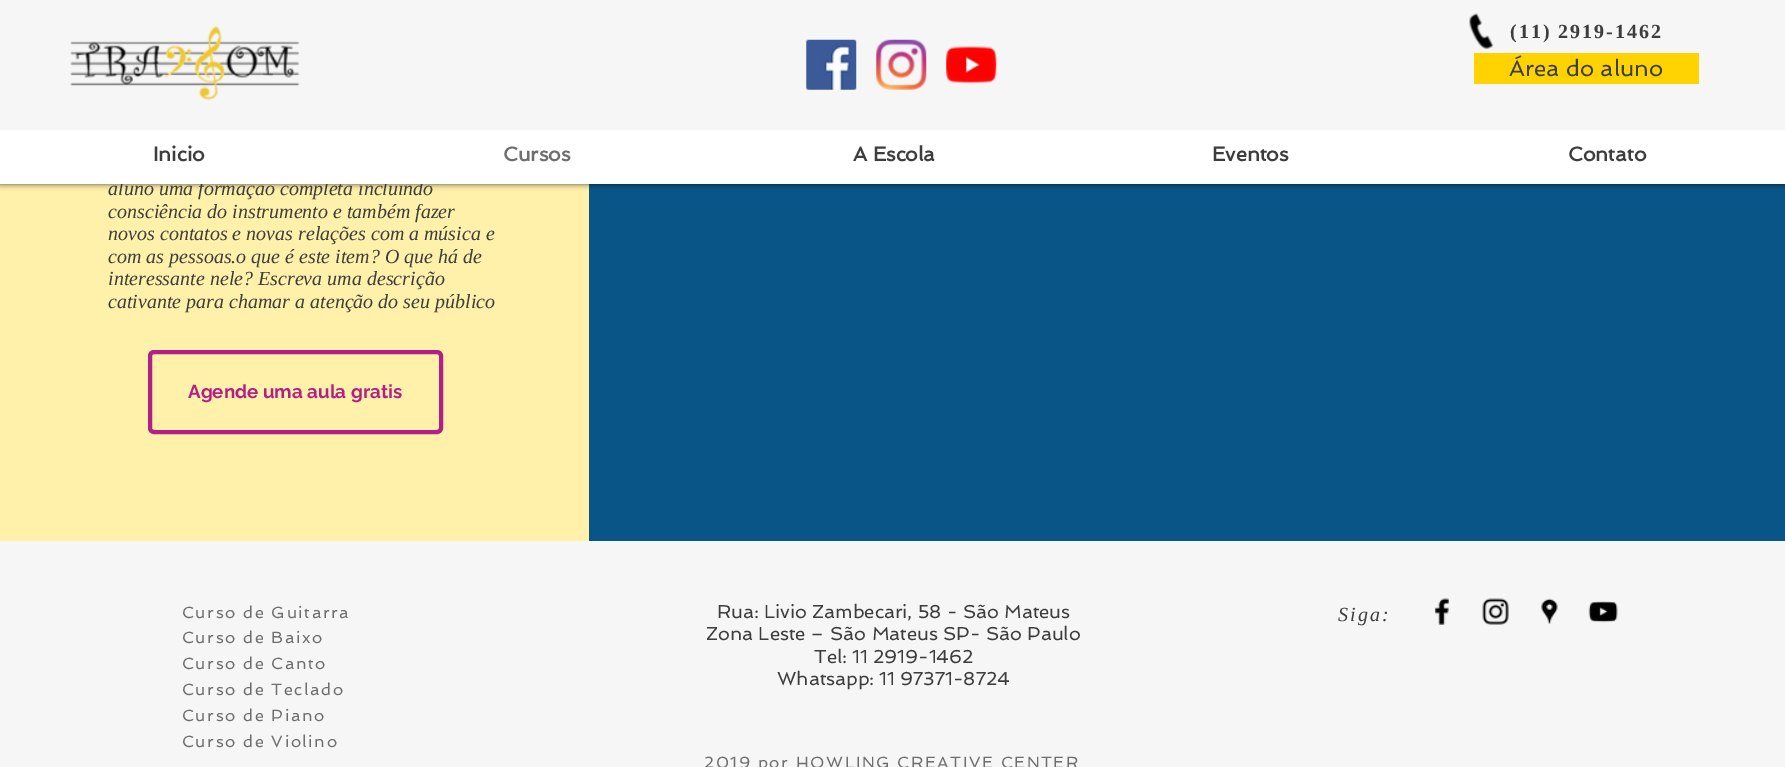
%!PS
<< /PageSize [1785 767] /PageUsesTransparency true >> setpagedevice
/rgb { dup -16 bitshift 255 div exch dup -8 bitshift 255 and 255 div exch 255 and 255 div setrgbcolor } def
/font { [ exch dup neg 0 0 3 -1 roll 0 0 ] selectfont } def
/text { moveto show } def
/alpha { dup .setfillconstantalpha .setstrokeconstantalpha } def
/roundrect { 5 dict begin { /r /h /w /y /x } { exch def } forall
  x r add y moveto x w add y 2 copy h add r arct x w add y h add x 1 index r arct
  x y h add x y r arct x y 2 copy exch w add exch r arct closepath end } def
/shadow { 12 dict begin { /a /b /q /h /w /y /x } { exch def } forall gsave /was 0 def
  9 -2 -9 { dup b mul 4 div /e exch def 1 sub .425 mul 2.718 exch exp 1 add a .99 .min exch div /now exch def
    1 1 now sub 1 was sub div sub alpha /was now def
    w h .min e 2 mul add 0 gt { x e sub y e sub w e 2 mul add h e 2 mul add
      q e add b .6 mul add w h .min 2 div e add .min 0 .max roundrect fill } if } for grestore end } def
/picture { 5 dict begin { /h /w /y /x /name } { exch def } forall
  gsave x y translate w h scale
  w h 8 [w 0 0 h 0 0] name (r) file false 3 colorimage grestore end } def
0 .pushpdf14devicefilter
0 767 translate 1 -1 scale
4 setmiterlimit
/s1 { /LiberationSerif-Italic 20 font 16#3D3D3D rgb } def
/s2 { /Spinnaker-Regular 22.5 font 16#3D3D3D rgb } def
/s3 { /Spinnaker-Bold 20 font 16#3D3D3D rgb } def
/s4 { /Spinnaker-Bold 20 font 16#6E6E6E rgb } def
/s5 { /Raleway-Bold 18.75 font 16#B22087 rgb } def
/s6 { /Spinnaker-Regular 18.75 font 16#3D3D3D rgb } def
16#F6F6F6 rgb
0 0 1785 767 rectfill
16#FFF0AA rgb
0 184 589 357 rectfill
16#0A5587 rgb
589 184 1196 357 rectfill
16#000000 rgb
0 0 1785 184 0 3 0.7 shadow
s1
(aluno uma formação completa incluindo) 108 195 text
16#FFFFFF rgb
0 130 1785 54 rectfill
16#F6F6F6 rgb
0 0 1785 130 rectfill
(pic1.raw) 70 25 230 76 picture
(pic2.raw) 806 39 51 51 picture
(pic3.raw) 876 39 51 51 picture
(pic4.raw) 946 46 51 38 picture
(pic5.raw) 1469 13 25 36 picture
/LiberationSerif-Bold 20 font
16#3D3D3D rgb
1510 38 moveto 2 0 (\(11\) 2919-1462) ashow
16#FED301 rgb
1474 53 225 31 rectfill
s2
(Área do aluno) 1509 76 text
s3
(Inicio) 153 161 text
s4
(Cursos) 503 161 text
s3
(A Escola) 853 161 text
(Eventos) 1212 161 text
(Contato) 1568 161 text
s1
(consciência do instrumento e também fazer) 108 218 text
(novos contatos e novas relações com a música e) 108 240 text
(com as pessoas.o que é este item? O que há de) 108 263 text
(interessante nele? Escreva uma descrição) 108 285 text
(cativante para chamar a atenção do seu público) 108 308 text
16#B22087 rgb
4 setlinewidth
150 352 291 80 4 roundrect stroke
s5
(Agende uma aula gratis) 188 398 text
/Spinnaker-Regular 16.25 font
16#6E6E6E rgb
182 618 moveto 1.6 0 (Curso de Guitarra) ashow
182 643 moveto 1.6 0 (Curso de Baixo) ashow
182 669 moveto 1.6 0 (Curso de Canto) ashow
182 695 moveto 1.6 0 (Curso de Teclado) ashow
182 721 moveto 1.6 0 (Curso de Piano) ashow
182 747 moveto 1.6 0 (Curso de Violino) ashow
s6
(Rua: Livio Zambecari, 58 - São Mateus) 717 618 text
(Zona Leste – São Mateus SP- São Paulo) 706 640 text
(Tel: 11 2919-1462) 814 663 text
(Whatsapp: 11 97371-8724) 777 685 text
/Spinnaker-Regular 16.25 font
16#6E6E6E rgb
704 768 moveto 1.6 0 (2019 por HOWLING CREATIVE CENTER) ashow
/LiberationSerif-Italic 20 font
16#3D3D3D rgb
1338 621 moveto 2 0 (Siga:) ashow
(pic6.raw) 1434 598 15 27 picture
(pic7.raw) 1482 598 27 27 picture
(pic8.raw) 1541 598 17 26 picture
(pic9.raw) 1588 601 30 22 picture
.poppdf14devicefilter showpage
